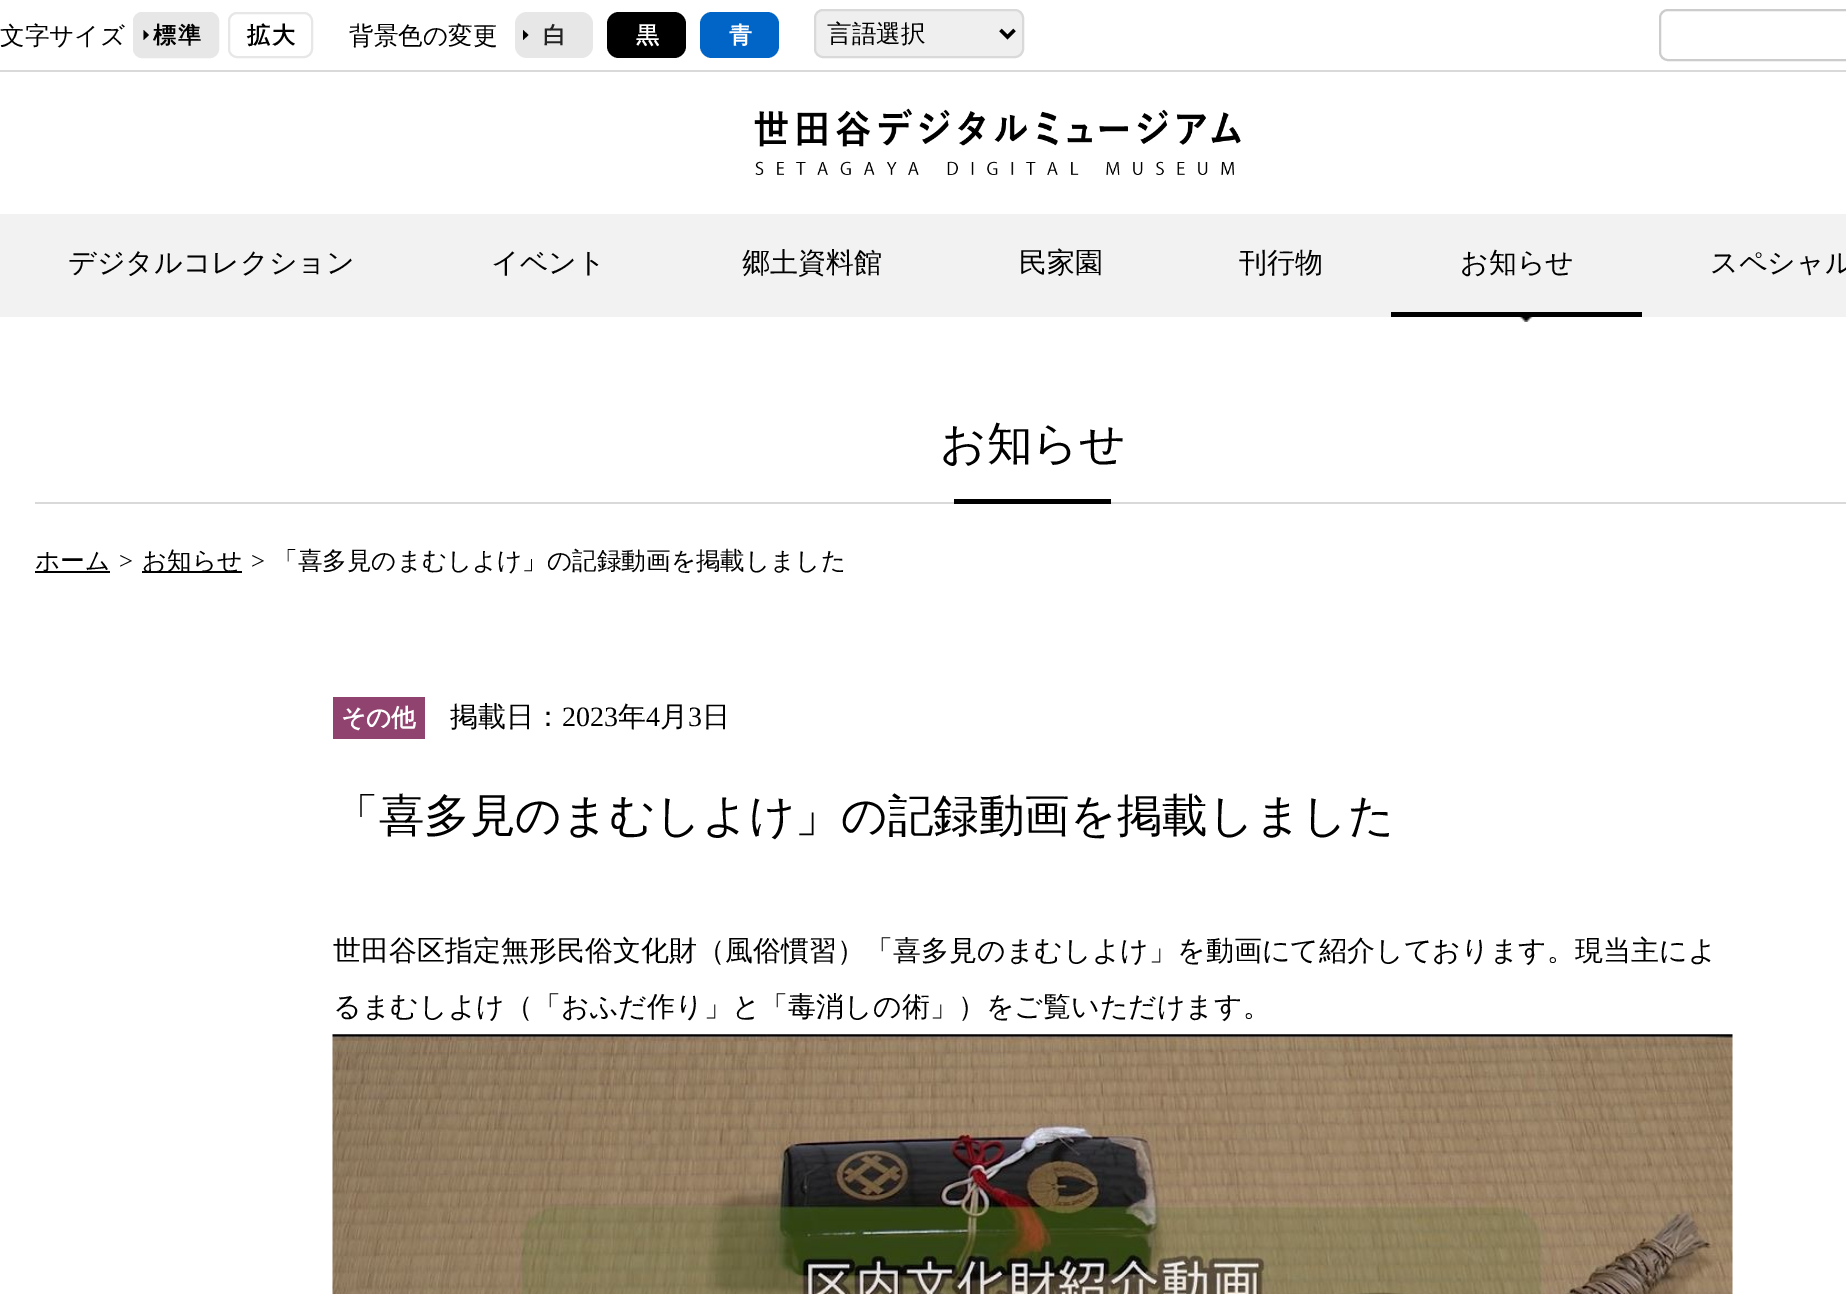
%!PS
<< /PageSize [1846 1294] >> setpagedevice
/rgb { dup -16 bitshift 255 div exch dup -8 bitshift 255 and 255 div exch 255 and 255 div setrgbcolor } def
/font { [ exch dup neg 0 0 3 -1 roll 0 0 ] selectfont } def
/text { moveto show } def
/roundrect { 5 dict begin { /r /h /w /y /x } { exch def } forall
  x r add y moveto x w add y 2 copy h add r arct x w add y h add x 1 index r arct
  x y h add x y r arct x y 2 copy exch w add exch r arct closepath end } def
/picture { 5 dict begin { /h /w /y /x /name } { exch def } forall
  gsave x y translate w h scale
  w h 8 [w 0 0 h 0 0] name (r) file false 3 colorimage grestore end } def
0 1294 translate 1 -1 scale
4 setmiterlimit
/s1 { /WenQuanYiZenHei-Medium 24.6 font 16#000000 rgb } def
/s2 { /WenQuanYiZenHei-Medium 28 font 16#000000 rgb } def
/s3 { /WenQuanYiZenHei-Medium 45.6 font 16#000000 rgb } def
/s4 { /LiberationSerif-Regular 24.6 font 16#000000 rgb } def
/s5 { /WenQuanYiZenHei-Bold 24.6 font 16#FFFFFF rgb } def
/s6 { /LiberationSerif-Regular 28 font 16#000000 rgb } def
16#FFFFFF rgb
0 0 1846 1294 rectfill
16#D9D9D9 rgb
0 70 1846 2 rectfill
s1
(文字サイズ) 0 44 text
16#E7E7E7 rgb
134 13 84 44 8 roundrect gsave fill grestore
2 setlinewidth
stroke
16#000000 rgb
143.5 40 moveto 143.5 30 lineto 149 35 lineto closepath fill
/WenQuanYiZenHei-Bold 23 font
153 43 moveto 2 0 (標準) ashow
16#E7E7E7 rgb
229 13 83 44 8 roundrect stroke
16#000000 rgb
247 43 moveto 2 0 (拡大) ashow
s1
(背景色の変更) 349 44 text
16#E7E7E7 rgb
515 12 78 46 12 roundrect fill
16#000000 rgb
523 40 moveto 523 30 lineto 528.5 35 lineto closepath fill
/WenQuanYiZenHei-Bold 23 font
16#222222 rgb
543 43 moveto 2 0 (白) ashow
16#000000 rgb
607 12 79 46 12 roundrect fill
16#FFFFFF rgb
636 43 moveto 2 0 (黒) ashow
16#0165C7 rgb
700 12 79 46 12 roundrect fill
16#FFFFFF rgb
729 43 moveto 2 0 (青) ashow
16#EFEFEF rgb
815 10 208 47 8 roundrect gsave fill grestore
16#D9D9D9 rgb
stroke
16#000000 rgb
3.5 setlinewidth
1000.5 30 moveto 1007.5 37 lineto 1014.5 30 lineto stroke
s1
(言語選択) 827 42 text
16#CCCCCC rgb
2 setlinewidth
1668 10 moveto 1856 10 lineto 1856 60 lineto 1668 60 lineto 1663.5 60 1660 56.5 1660 52 curveto 1660 18 lineto 1660 13.5 1663.5 10 1668 10 curveto closepath stroke
(pic1.raw) 754 108 487 67 picture
16#F2F2F2 rgb
0 214 1846 103 rectfill
s2
(デジタルコレクション) 68 272 text
(イベント) 491 272 text
(郷土資料館) 742 272 text
(民家園) 1019 272 text
(刊行物) 1239 272 text
1391 312 251 5 rectfill
(お知らせ) 1460 272 text
(pic2.raw) 1519 317 14 5 picture
(スペシャル) 1710 272 text
16#D9D9D9 rgb
35 502 1811 2 rectfill
s3
(お知らせ) 940 459 text
954 499 157 5 rectfill
35 571 75 2 rectfill
s1
(ホーム) 35 569 text
s4
(>) 119 569 text
142 571 100 2 rectfill
s1
(お知らせ) 142 569 text
s4
(>) 251 569 text
s1
(「喜多見のまむしよけ」の記録動画を掲載しました) 273 569 text
16#90436F rgb
333 697 92 42 rectfill
s5
(その他) 341 726 text
s2
(掲載日：) 450 726 text
s6
(2023) 562 726 text
s2
(年) 618 726 text
s6
(4) 646 726 text
s2
(月) 660 726 text
s6
(3) 688 726 text
s2
(日) 702 726 text
s3
(「喜多見のまむしよけ」の記録動画を掲載しました) 333 831 text
s2
(世田谷区指定無形民俗文化財（風俗慣習）「喜多見のまむしよけ」を動画にて紹介しております。現当主によ) 333 960 text
(るまむしよけ（「おふだ作り」と「毒消しの術」）をご覧いただけます。) 333 1016 text
(pic3.raw) 332 1034 1401 260 picture
showpage
